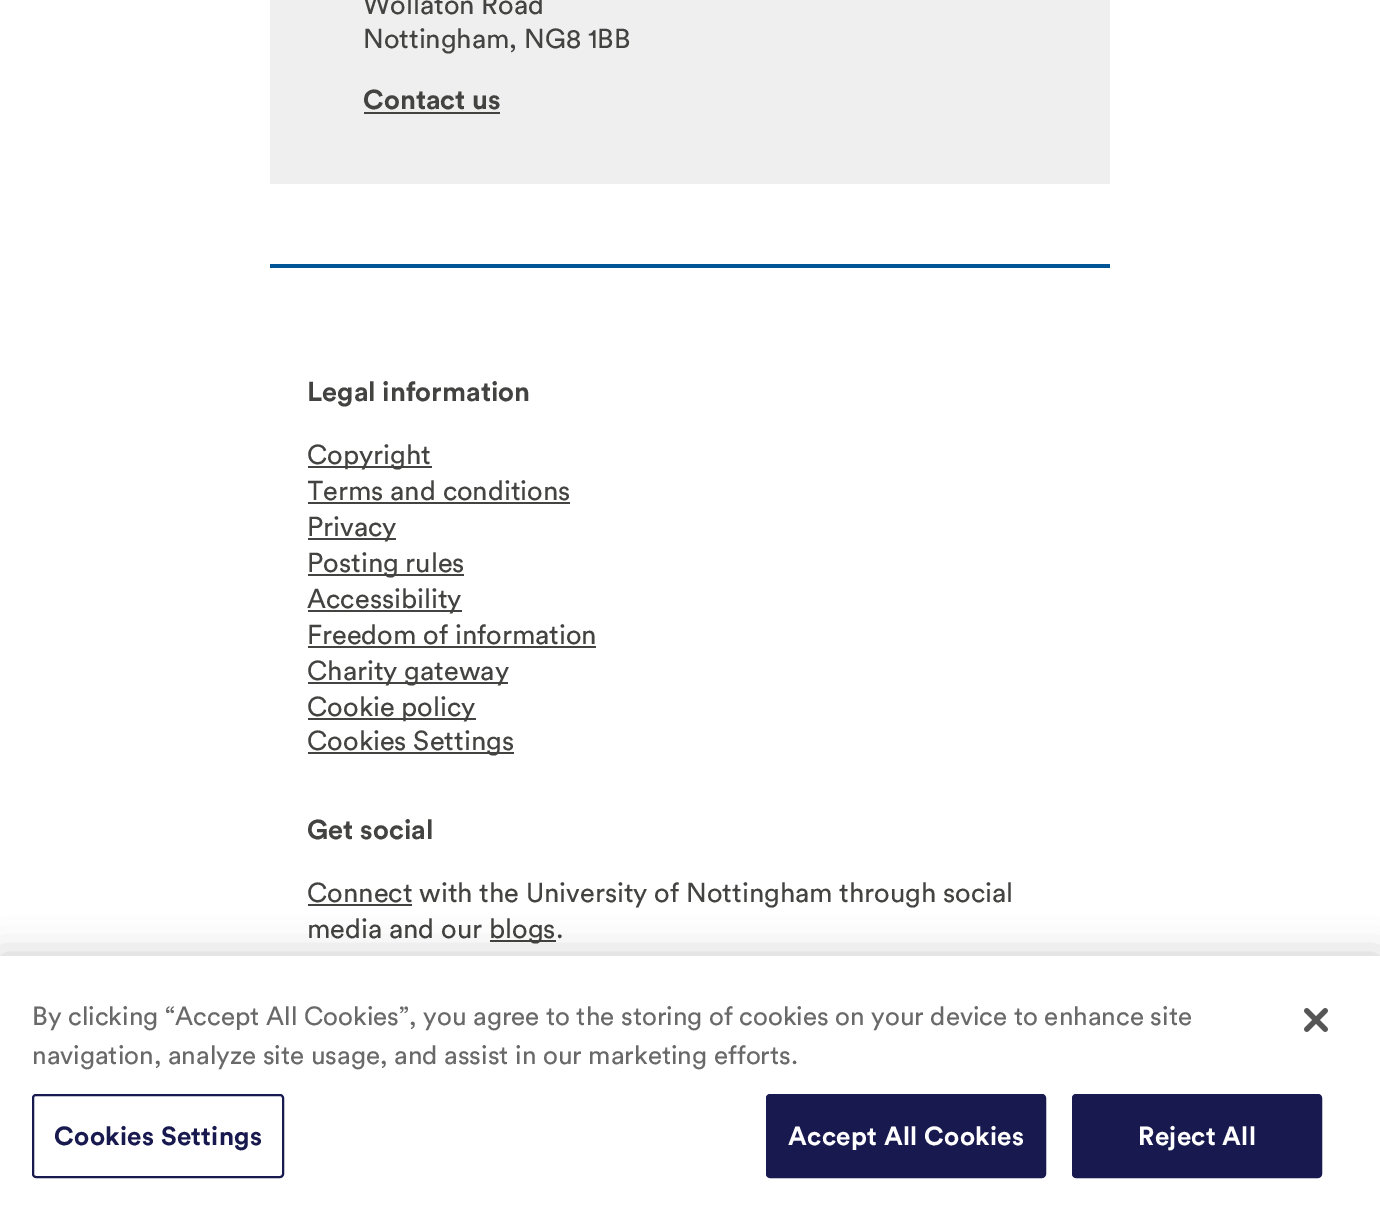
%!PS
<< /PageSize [1380 1217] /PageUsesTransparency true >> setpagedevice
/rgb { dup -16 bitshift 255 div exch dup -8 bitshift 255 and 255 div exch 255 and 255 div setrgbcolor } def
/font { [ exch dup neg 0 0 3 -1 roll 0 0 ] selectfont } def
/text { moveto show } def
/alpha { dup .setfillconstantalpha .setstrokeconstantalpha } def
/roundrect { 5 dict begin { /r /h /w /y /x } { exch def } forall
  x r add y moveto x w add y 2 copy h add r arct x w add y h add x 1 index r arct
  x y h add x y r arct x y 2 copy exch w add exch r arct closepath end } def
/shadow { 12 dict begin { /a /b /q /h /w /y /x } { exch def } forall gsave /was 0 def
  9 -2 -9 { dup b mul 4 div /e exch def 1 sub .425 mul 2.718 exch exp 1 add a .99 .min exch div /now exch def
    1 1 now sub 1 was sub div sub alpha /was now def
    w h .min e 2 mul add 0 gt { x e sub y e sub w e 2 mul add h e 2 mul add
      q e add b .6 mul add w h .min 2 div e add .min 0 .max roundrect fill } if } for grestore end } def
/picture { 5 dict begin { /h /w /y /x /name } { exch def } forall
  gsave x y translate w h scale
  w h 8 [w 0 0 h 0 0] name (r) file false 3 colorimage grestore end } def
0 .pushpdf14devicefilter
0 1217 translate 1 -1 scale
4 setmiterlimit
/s1 { /Circular-Regular 27.2 font 16#434341 rgb } def
/s2 { /Circular-Bold 27.2 font 16#434341 rgb } def
/s3 { /Circular-Regular 26 font 16#696969 rgb } def
16#FFFFFF rgb
0 0 1380 1217 rectfill
16#EFEFEF rgb
270 0 840 184 rectfill
s1
(Wollaton Road) 363 14 text
(Nottingham, NG8 1BB) 363 48 text
s2
(Contact us) 363 109 text
364 112 136 2 rectfill
16#005597 rgb
270 264 840 4 rectfill
s2
(Legal information) 307 401 text
308 466 124 2 rectfill
s1
(Copyright) 307 464 text
gsave
308 346 764 790 rectclip
(Terms and conditions) 307 500 text
grestore
308 502 262 2 rectfill
308 538 88 2 rectfill
(Privacy) 307 536 text
308 574 156 2 rectfill
(Posting rules) 307 572 text
308 610 154 2 rectfill
(Accessibility) 307 608 text
(Freedom of information) 307 644 text
308 646 288 2 rectfill
308 682 200 2 rectfill
(Charity gateway) 307 680 text
308 718 168 2 rectfill
(Cookie policy) 307 716 text
308 752 206 2 rectfill
(Cookies Settings) 307 750 text
s2
(Get social) 307 839 text
308 904 104 2 rectfill
s1
(Connect with the University of Nottingham through social) 307 902 text
(media and our) 307 938 text
490 940 66 2 rectfill
(blogs.) 489 938 text
16#000000 rgb
0 956 1380 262 0 18 0.2 shadow
16#FFFFFF rgb
0 956 1380 261 rectfill
s3
(By clicking “Accept All Cookies”, you agree to the storing of cookies on your device to enhance site) 32 1025 text
(navigation, analyze site usage, and assist in our marketing efforts.) 32 1064 text
16#18194F rgb
2 setlinewidth
33 1095 250 82 3 roundrect stroke
/Circular-Bold 26 font
54 1145 moveto 0.25 0 (Cookies Settings) ashow
767 1095 278 82 3 roundrect gsave fill grestore
stroke
16#FFFFFF rgb
788 1145 moveto 0.25 0 (Accept All Cookies) ashow
16#18194F rgb
1073 1095 248 82 3 roundrect gsave fill grestore
stroke
16#FFFFFF rgb
1138 1145 moveto 0.25 0 (Reject All) ashow
(pic1.raw) 1304 1008 24 24 picture
.poppdf14devicefilter showpage
